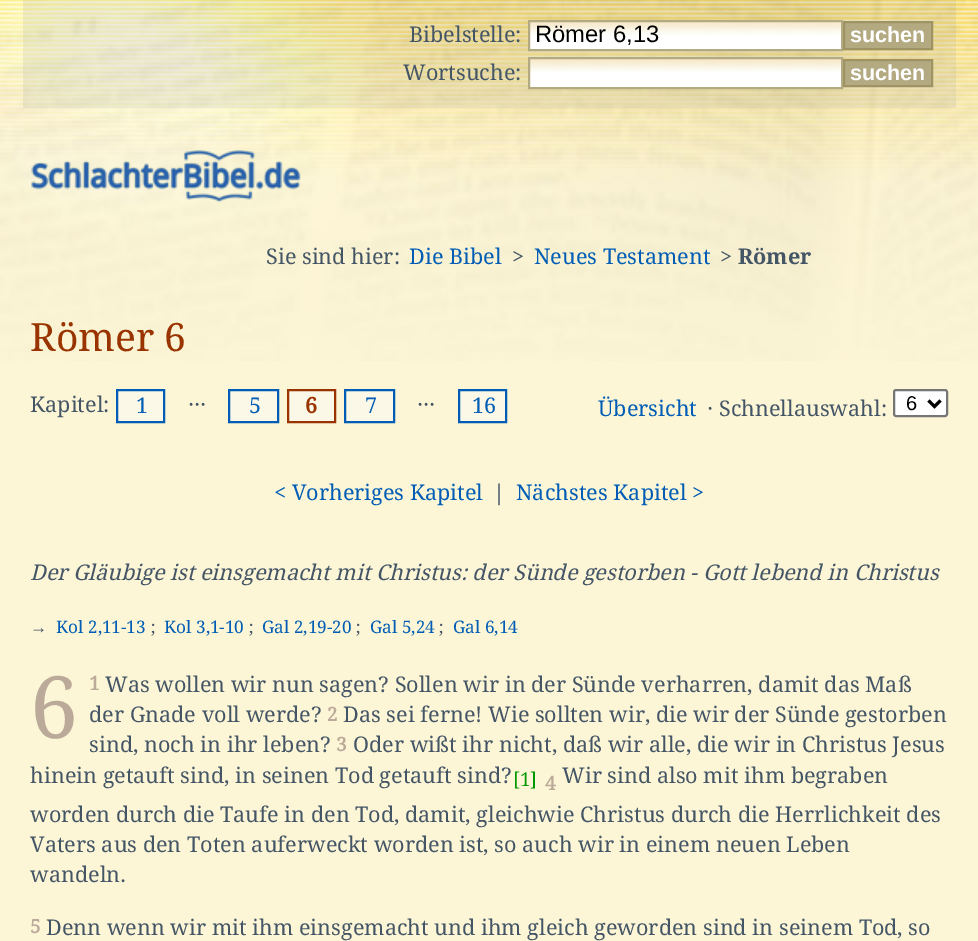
%!PS
<< /PageSize [978 941] /PageUsesTransparency true >> setpagedevice
/rgb { dup -16 bitshift 255 div exch dup -8 bitshift 255 and 255 div exch 255 and 255 div setrgbcolor } def
/font { [ exch dup neg 0 0 3 -1 roll 0 0 ] selectfont } def
/text { moveto show } def
/alpha { dup .setfillconstantalpha .setstrokeconstantalpha } def
/roundrect { 5 dict begin { /r /h /w /y /x } { exch def } forall
  x r add y moveto x w add y 2 copy h add r arct x w add y h add x 1 index r arct
  x y h add x y r arct x y 2 copy exch w add exch r arct closepath end } def
/picture { 5 dict begin { /h /w /y /x /name } { exch def } forall
  gsave x y translate w h scale
  w h 8 [w 0 0 h 0 0] name (r) file false 3 colorimage grestore end } def
0 .pushpdf14devicefilter
0 941 translate 1 -1 scale
4 setmiterlimit
/s1 { /DroidSerif-Regular 21.6 font 16#445566 rgb } def
/s2 { /LiberationSans-Regular 23.75 font 16#000000 rgb } def
/s3 { /LiberationSans-Bold 21.6 font 16#FFFFFF rgb } def
/s4 { /DroidSerif-Regular 21.6 font 16#005CB4 rgb } def
/s5 { /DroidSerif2-Bold 21.6 font 16#445566 rgb } def
/s6 { /DroidSerif-Regular 39 font 16#993300 rgb } def
/s7 { /DroidSerif-Bold 21.6 font 16#993300 rgb } def
/s8 { /LiberationSans-Regular 20 font 16#000000 rgb } def
/s9 { /DroidSerif-Italic 21.6 font 16#445566 rgb } def
/s10 { /LiberationSerif-Regular 17.25 font 16#445566 rgb } def
/s11 { /DroidSerif-Regular 17.25 font 16#005CB4 rgb } def
/s12 { /DroidSerif-Regular 17.25 font 16#445566 rgb } def
/s13 { /DroidSerif-Bold 19 font 16#BBAA99 rgb } def
/s14 { /DroidSerif-Regular 19 font 16#009900 rgb } def
16#FDF6D6 rgb
0 0 978 941 rectfill
(pic1.raw) 0 0 978 361 picture
0.15 alpha
16#969696 rgb
23 0 933 108 rectfill
1 alpha
s1
(Bibelstelle:) 409 42 text
16#FFFFFF rgb
530 36 311 13 rectfill
(pic2.raw) 530 22 311 14 picture
16#B3AA82 rgb
2 setlinewidth
529 21 313 29 rectstroke
s2
(Römer 6,13) 535 42 text
16#B3AA82 rgb
844 22 moveto 932 22 lineto 932 49 lineto 844 49 lineto closepath gsave fill grestore
16#9F9263 rgb
stroke
s3
(suchen) 850 42 text
s1
(Wortsuche:) 403 80 text
16#FFFFFF rgb
530 73 311 14 rectfill
(pic3.raw) 530 59 311 14 picture
16#B3AA82 rgb
529 58 313 30 rectstroke
844 60 moveto 932 60 lineto 932 86 lineto 844 86 lineto closepath gsave fill grestore
16#9F9263 rgb
stroke
s3
(suchen) 850 80 text
(pic4.raw) 31 150 270 53 picture
s1
(Sie sind hier:) 266 264 text
s4
(Die Bibel) 409 264 text
s1
(>) 512 264 text
s4
(Neues Testament) 534 264 text
s1
(>) 720 264 text
s5
(Römer) 738 264 text
s6
(Römer 6) 30 351 text
s1
(Kapitel:) 30 412 text
16#FBF8E8 rgb
117 390 moveto 164 390 lineto 164 422 lineto 117 422 lineto closepath gsave fill grestore
16#005CB4 rgb
stroke
(1) 136 413 text
s1
(···) 188 412 text
16#FBF8E8 rgb
229 390 moveto 278 390 lineto 278 422 lineto 229 422 lineto closepath gsave fill grestore
16#005CB4 rgb
stroke
(5) 249 413 text
16#FBF8E8 rgb
288 390 moveto 335 390 lineto 335 422 lineto 288 422 lineto closepath gsave fill grestore
16#993300 rgb
stroke
s7
(6) 305 413 text
16#FBF8E8 rgb
345 390 moveto 394 390 lineto 394 422 lineto 345 422 lineto closepath gsave fill grestore
16#005CB4 rgb
stroke
s4
(7) 365 413 text
s1
(···) 417 412 text
16#FBF8E8 rgb
459 390 moveto 506 390 lineto 506 422 lineto 459 422 lineto closepath gsave fill grestore
16#005CB4 rgb
stroke
(16) 472 413 text
(Übersicht) 598 416 text
s1
(· Schnellauswahl:) 707 416 text
16#FFFFFF rgb
894 390 53 26 2 roundrect gsave fill grestore
16#767676 rgb
stroke
16#000000 rgb
3 setlinewidth
928.5 400.5 moveto 934.5 406.5 lineto 940.5 400.5 lineto stroke
s8
(6) 906 410 text
s4
(< Vorheriges Kapitel) 274 500 text
s1
(|) 493 500 text
s4
(Nächstes Kapitel >) 516 500 text
s9
(Der Gläubige ist einsgemacht mit Christus: der Sünde gestorben - Gott lebend in Christus) 30 580 text
s10
(→) 30 633 text
s11
(Kol 2,11-13) 56 633 text
s12
(;) 151 633 text
s11
(Kol 3,1-10) 164 633 text
s12
(;) 249 633 text
s11
(Gal 2,19-20) 262 633 text
s12
(;) 356 633 text
s11
(Gal 5,24) 370 633 text
s12
(;) 439 633 text
s11
(Gal 6,14) 453 633 text
s13
(1) 89 690 text
s1
(Was wollen wir nun sagen? Sollen wir in der Sünde verharren, damit das Maß) 105 692 text
(der Gnade voll werde?) 89 722 text
s13
(2) 327 721 text
s1
(Das sei ferne! Wie sollten wir, die wir der Sünde gestorben) 343 722 text
(sind, noch in ihr leben?) 89 752 text
s13
(3) 336 751 text
s1
(Oder wißt ihr nicht, daß wir alle, die wir in Christus Jesus) 353 752 text
(hinein getauft sind, in seinen Tod getauft sind?) 30 783 text
s14
([1]) 513 786 text
s13
(4) 545 790 text
s1
(Wir sind also mit ihm begraben) 562 783 text
(worden durch die Taufe in den Tod, damit, gleichwie Christus durch die Herrlichkeit des) 30 822 text
(Vaters aus den Toten auferweckt worden ist, so auch wir in einem neuen Leben) 30 852 text
(wandeln.) 30 882 text
/DroidSerif-Regular 86 font
16#BBAA99 rgb
30 738 moveto -3 0 (6) ashow
s13
(5) 30 933 text
s1
(Denn wenn wir mit ihm einsgemacht und ihm gleich geworden sind in seinem Tod, so) 46 935 text
.poppdf14devicefilter showpage
